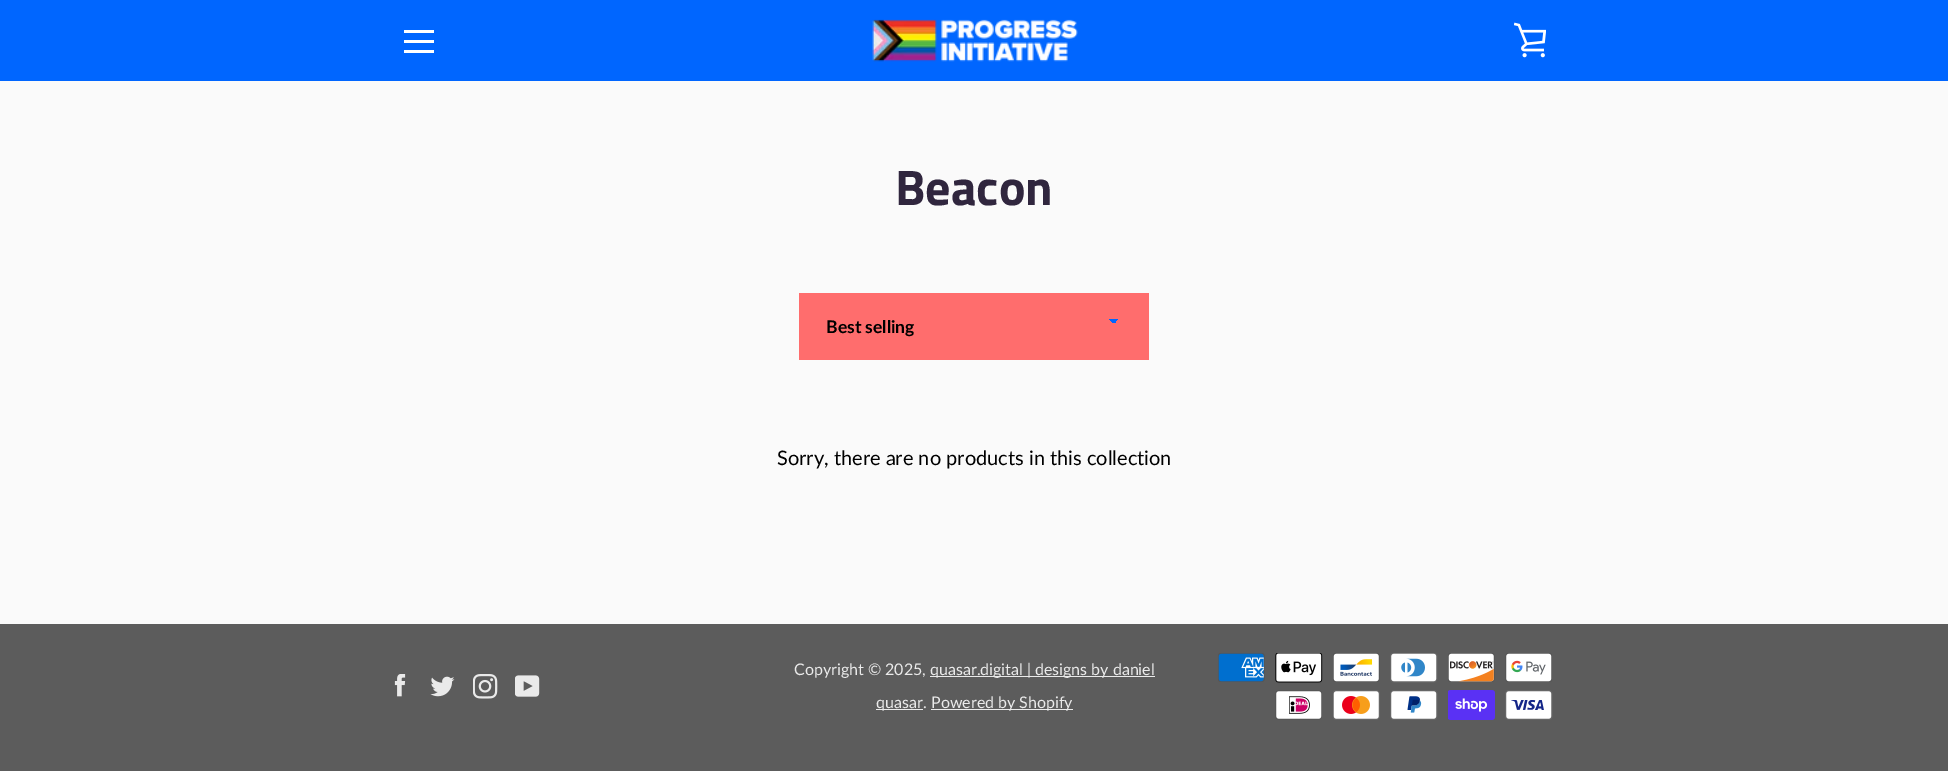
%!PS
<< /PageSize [1948 771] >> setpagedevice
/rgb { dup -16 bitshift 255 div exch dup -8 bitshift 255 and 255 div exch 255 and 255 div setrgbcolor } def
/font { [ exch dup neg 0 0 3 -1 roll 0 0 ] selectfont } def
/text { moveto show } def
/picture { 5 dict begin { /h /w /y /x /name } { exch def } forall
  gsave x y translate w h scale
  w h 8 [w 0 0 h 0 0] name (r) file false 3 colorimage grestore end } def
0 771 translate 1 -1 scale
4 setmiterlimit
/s1 { /TitilliumWeb-Bold 50 font 16#30263E rgb } def
/s2 { /Lato-Bold 17.5 font 16#000000 rgb } def
/s3 { /Lato-Regular 20 font 16#000000 rgb } def
/s4 { /Lato-Regular 16 font 16#EAEAEA rgb } def
16#5C5C5C rgb
0 0 1948 771 rectfill
16#0066FF rgb
0 0 1948 81 rectfill
16#FFFFFF rgb
404 30 30 3 rectfill
404 40 30 3 rectfill
404 50 30 3 rectfill
(pic1.raw) 872 19 206 43 picture
(pic2.raw) 1514 22 32 36 picture
16#FAFAFA rgb
0 81 1948 543 rectfill
s1
(Beacon) 895 205 text
16#FF6D6D rgb
799 293 350 67 rectfill
gsave 1114 319 moveto 1119 319 lineto 1119 323 lineto 1114 323 lineto closepath clip newpath
<< /ShadingType 2 /ColorSpace /DeviceRGB /Coords [1114 319 1119 324] /Extend [true true] /Function << /FunctionType 3 /Domain [0 1] /Functions [<< /FunctionType 2 /Domain [0 1] /C0 [0 0.4 1] /C1 [0 0.4 1] /N 1 >> << /FunctionType 2 /Domain [0 1] /C0 [1 0.427 0.427] /C1 [1 0.427 0.427] /N 1 >>] /Bounds [0.5] /Encode [0 1 0 1] >> >> shfill grestore
gsave 1109 319 moveto 1114 319 lineto 1114 323 lineto 1109 323 lineto closepath clip newpath
<< /ShadingType 2 /ColorSpace /DeviceRGB /Coords [1109 324 1114 319] /Extend [true true] /Function << /FunctionType 3 /Domain [0 1] /Functions [<< /FunctionType 2 /Domain [0 1] /C0 [1 0.427 0.427] /C1 [1 0.427 0.427] /N 1 >> << /FunctionType 2 /Domain [0 1] /C0 [0 0.4 1] /C1 [0 0.4 1] /N 1 >>] /Bounds [0.5] /Encode [0 1 0 1] >> >> shfill grestore
s2
(Best selling) 826 333 text
s3
(Sorry, there are no products in this collection) 777 465 text
(pic3.raw) 394 674 12 23 picture
(pic4.raw) 430 676 25 21 picture
(pic5.raw) 473 674 25 25 picture
(pic6.raw) 515 675 25 22 picture
s4
(Copyright © 2025,) 794 675 text
930 676 225 1 rectfill
(quasar.digital | designs by daniel) 930 675 text
876 709 47 1 rectfill
(quasar.) 876 708 text
931 709 142 1 rectfill
(Powered by Shopify) 931 708 text
(pic7.raw) 1218 653 47 29 picture
(pic8.raw) 1275 653 48 30 picture
(pic9.raw) 1333 653 47 29 picture
(pic10.raw) 1390 653 48 30 picture
(pic11.raw) 1448 653 47 29 picture
(pic12.raw) 1505 653 47 29 picture
(pic13.raw) 1275 690 47 30 picture
(pic14.raw) 1333 690 47 30 picture
(pic15.raw) 1390 690 48 30 picture
(pic16.raw) 1448 690 47 30 picture
(pic17.raw) 1505 690 48 30 picture
showpage
